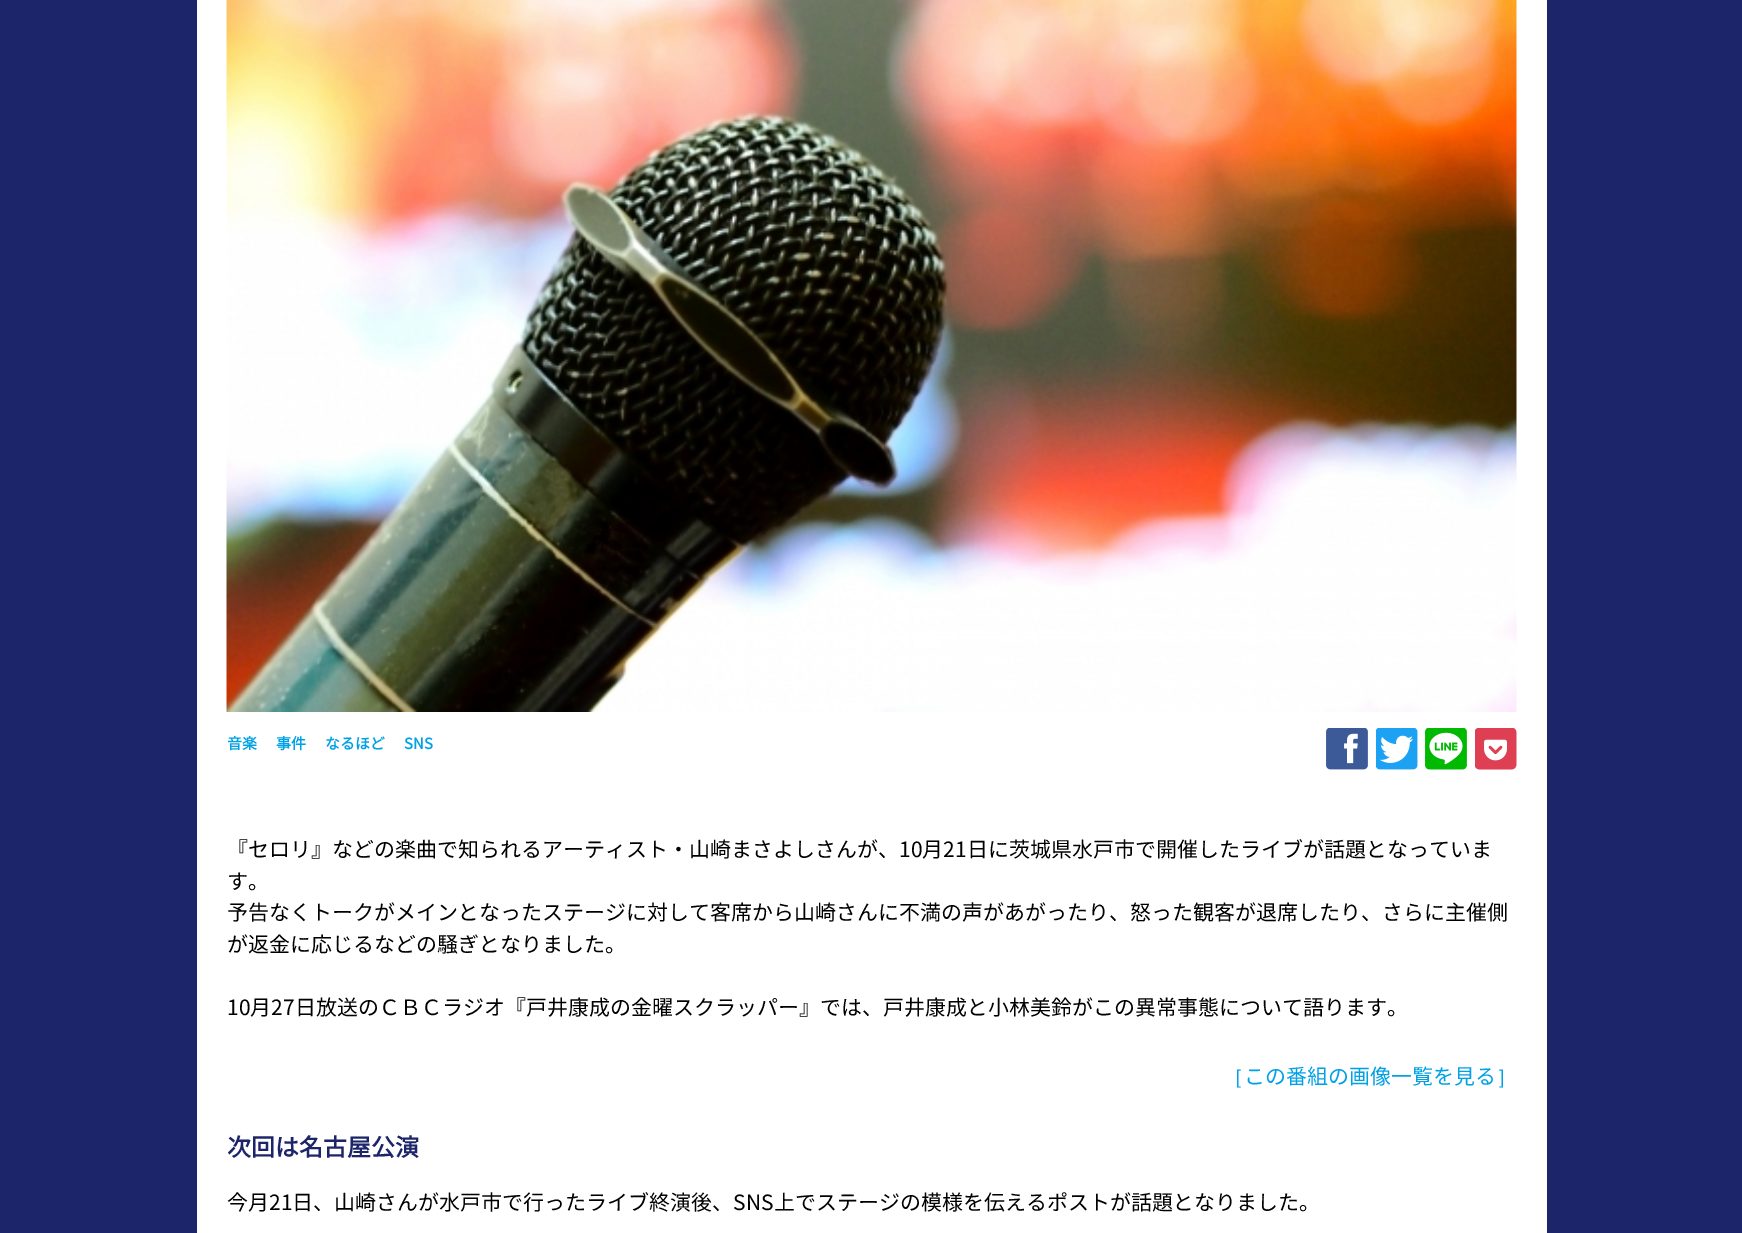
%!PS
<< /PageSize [1742 1233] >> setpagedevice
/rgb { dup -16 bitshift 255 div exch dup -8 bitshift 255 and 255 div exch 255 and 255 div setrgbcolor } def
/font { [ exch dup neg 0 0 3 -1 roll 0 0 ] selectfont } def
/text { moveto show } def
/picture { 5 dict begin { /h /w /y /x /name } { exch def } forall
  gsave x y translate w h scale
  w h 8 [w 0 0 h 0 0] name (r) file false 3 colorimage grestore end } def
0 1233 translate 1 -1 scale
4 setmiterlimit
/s1 { /NotoSansCJKJP-Bold 15 font 16#00A1E5 rgb } def
/s2 { /NotoSansCJKJP-Regular 21 font 16#000000 rgb } def
/s3 { /WenQuanYiZenHei-Medium 21 font 16#00A1E5 rgb } def
/s4 { /NotoSansCJKJP-Regular 21 font 16#00A1E5 rgb } def
/s5 { /NotoSansCJKJP-Bold 24 font 16#1D256A rgb } def
16#1D256A rgb
0 0 1742 1233 rectfill
16#FFFFFF rgb
197 0 1350 1233 rectfill
(pic1.raw) 226 0 1291 712 picture
s1
(音楽) 227 749 text
(事件) 276 749 text
(なるほど) 325 749 text
(SNS) 404 749 text
(pic2.raw) 1326 728 42 42 picture
(pic3.raw) 1376 728 42 42 picture
(pic4.raw) 1425 728 42 42 picture
(pic5.raw) 1475 728 42 42 picture
s2
(『セロリ』などの楽曲で知られるアーティスト・山崎まさよしさんが、10月21日に茨城県水戸市で開催したライブが話題となっていま) 227 857 text
(す。) 227 889 text
(予告なくトークがメインとなったステージに対して客席から山崎さんに不満の声があがったり、怒った観客が退席したり、さらに主催側) 227 920 text
(が返金に応じるなどの騒ぎとなりました。) 227 952 text
(10月27日放送のＣＢＣラジオ『戸井康成の金曜スクラッパー』では、戸井康成と小林美鈴がこの異常事態について語ります。) 227 1015 text
s3
(［) 1223 1084 text
s4
(この番組の画像一覧を見る) 1244 1084 text
s3
(］) 1496 1084 text
s5
(次回は名古屋公演) 227 1156 text
s2
(今月21日、山崎さんが水戸市で行ったライブ終演後、SNS上でステージの模様を伝えるポストが話題となりました。) 227 1210 text
showpage
